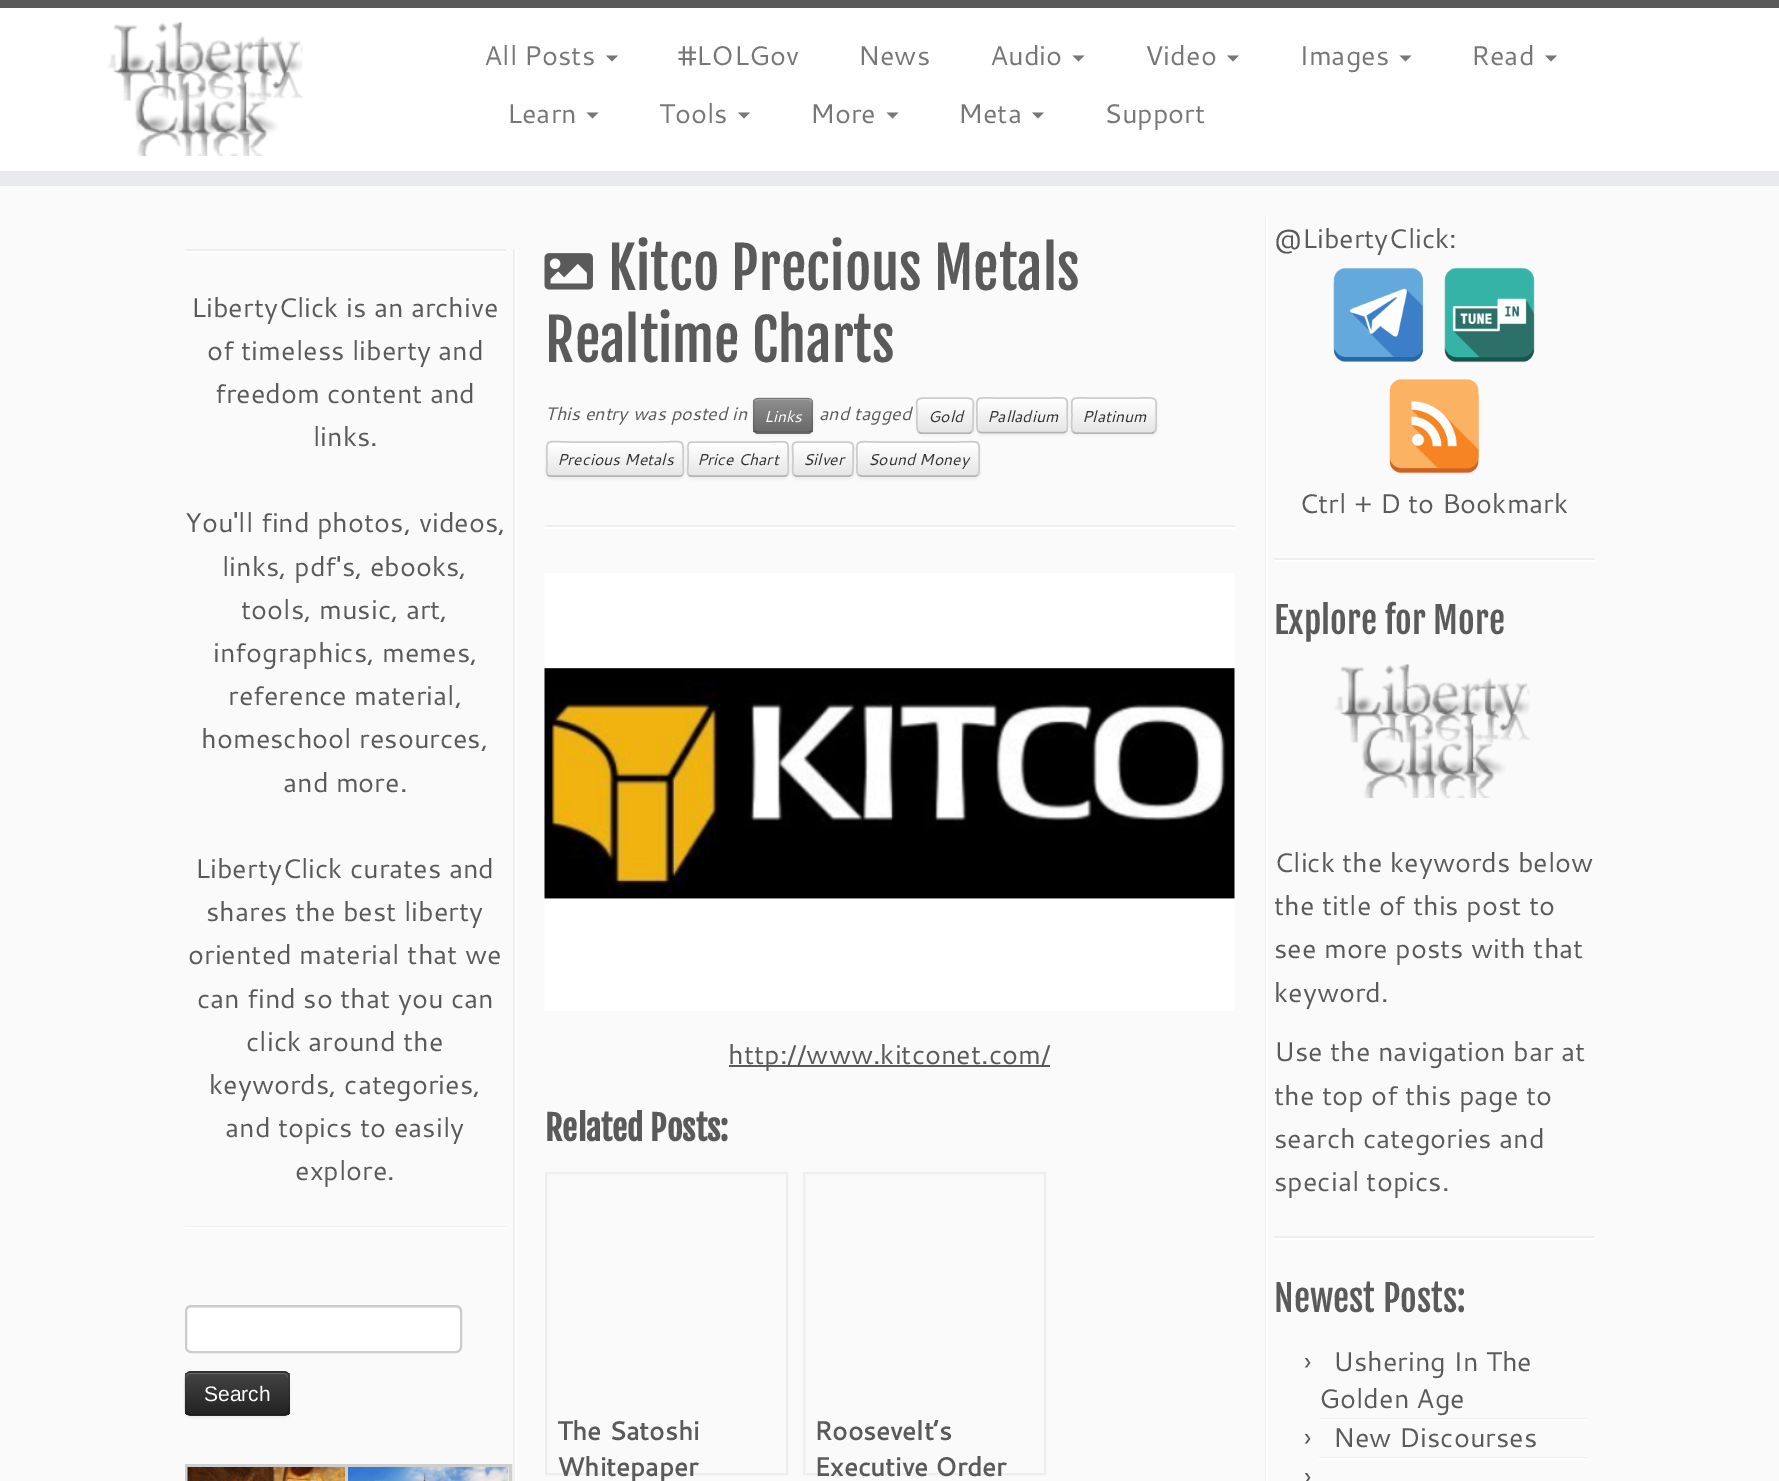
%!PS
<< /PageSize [1779 1481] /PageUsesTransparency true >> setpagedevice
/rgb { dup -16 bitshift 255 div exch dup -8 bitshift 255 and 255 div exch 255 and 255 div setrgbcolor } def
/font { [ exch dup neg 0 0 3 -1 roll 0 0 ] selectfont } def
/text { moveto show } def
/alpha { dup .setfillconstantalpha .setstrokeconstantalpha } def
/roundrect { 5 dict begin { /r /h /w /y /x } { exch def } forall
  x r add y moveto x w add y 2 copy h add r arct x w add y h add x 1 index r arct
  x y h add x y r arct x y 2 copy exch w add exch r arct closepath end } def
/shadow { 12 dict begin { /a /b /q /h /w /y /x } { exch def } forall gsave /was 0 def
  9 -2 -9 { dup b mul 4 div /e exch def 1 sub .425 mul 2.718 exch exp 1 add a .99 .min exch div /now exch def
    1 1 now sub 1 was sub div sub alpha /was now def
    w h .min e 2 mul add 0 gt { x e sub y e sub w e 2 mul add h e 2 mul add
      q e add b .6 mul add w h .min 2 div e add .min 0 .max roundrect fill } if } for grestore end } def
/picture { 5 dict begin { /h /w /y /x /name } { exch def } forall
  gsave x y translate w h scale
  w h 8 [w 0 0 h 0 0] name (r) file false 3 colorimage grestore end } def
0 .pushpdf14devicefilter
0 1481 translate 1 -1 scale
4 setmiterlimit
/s1 { /Cantarell-Regular 27 font 16#777777 rgb } def
/s2 { /Cantarell-Regular 27 font 16#5A5A5A rgb } def
/s3 { /LiberationSans-Regular 21 font 16#FFFFFF rgb } def
/s4 { /FjallaOne-Regular 57 font 16#5A5A5A rgb } def
/s5 { /Cantarell-Italic 18 font 16#5A5A5A rgb } def
/s6 { /Cantarell-Italic 15.75 font 16#FFFFFF rgb } def
/s7 { /Cantarell-Italic 15.75 font 16#333333 rgb } def
/s8 { /FjallaOne-Bold 33.75 font 16#5A5A5A rgb } def
/s9 { /Cantarell-Bold 26 font 16#5A5A5A rgb } def
/s10 { /FjallaOne-Regular 36 font 16#5A5A5A rgb } def
16#FAFAFA rgb
0 0 1779 1481 rectfill
16#FFFFFF rgb
0 8 1779 163 rectfill
16#5A5A5A rgb
0 0 1779 8 rectfill
16#E9EAEE rgb
0 171 1779 15 rectfill
(pic1.raw) 106 22 197 134 picture
s1
(All Posts) 484 65 text
606 55.5 moveto 618 55.5 lineto 612 61.5 lineto closepath fill
(#LOLGov) 678 65 text
(News) 858 65 text
(Audio) 990 65 text
1072.5 55.5 moveto 1084.5 55.5 lineto 1078.5 61.5 lineto closepath fill
(Video) 1145 65 text
1227 55.5 moveto 1239 55.5 lineto 1233 61.5 lineto closepath fill
(Images) 1299 65 text
1399.5 55.5 moveto 1411.5 55.5 lineto 1405.5 61.5 lineto closepath fill
(Read) 1471 65 text
1545 55.5 moveto 1557 55.5 lineto 1551 61.5 lineto closepath fill
(Learn) 507 123 text
586.5 112.5 moveto 598.5 112.5 lineto 592.5 118.5 lineto closepath fill
(Tools) 659 123 text
738 112.5 moveto 750 112.5 lineto 744 118.5 lineto closepath fill
(More) 810 123 text
886.5 112.5 moveto 898.5 112.5 lineto 892.5 118.5 lineto closepath fill
(Meta) 958 123 text
1032 112.5 moveto 1044 112.5 lineto 1038 118.5 lineto closepath fill
(Support) 1104 123 text
16#EEEEEE rgb
513 249 2 1232 rectfill
185 249 321 2 rectfill
16#FFFFFF rgb
185 251 321 2 rectfill
s2
(LibertyClick is an archive) 191 317 text
(of timeless liberty and) 207 360 text
(freedom content and) 215 403 text
(links.) 313 446 text
(You'll find photos, videos,) 185 532 text
(links, pdf's, ebooks,) 222 576 text
(tools, music, art,) 241 619 text
(infographics, memes,) 213 662 text
(reference material,) 228 705 text
(homeschool resources,) 201 748 text
(and more.) 283 792 text
(LibertyClick curates and) 195 878 text
(shares the best liberty) 206 921 text
(oriented material that we) 188 964 text
(can find so that you can) 197 1008 text
(click around the) 246 1051 text
(keywords, categories,) 209 1094 text
(and topics to easily) 225 1137 text
(explore.) 295 1180 text
16#EEEEEE rgb
185 1226 321 1 rectfill
16#FFFFFF rgb
185 1227 321 2 rectfill
515 249 2 1232 rectfill
185 1305 277 48 6 roundrect fill
16#ECECEC rgb
190 1308 moveto 456 1308 lineto 458 1308 460 1310 460 1312 curveto 460 1348 lineto 459 1351 lineto 460 1350 461 1348 461 1347 curveto 461 1312 lineto 461 1309 459 1307 456 1307 curveto 191 1307 lineto 188 1307 186 1309 186 1312 curveto 186 1310 188 1308 190 1308 curveto closepath fill
16#CCCCCC rgb
2 setlinewidth
186 1306 275 46 5 roundrect stroke
16#000000 rgb
185 1373 105 45 6 1.5 0.05 shadow
16#363636 rgb
185 1371 105 45 6 roundrect fill
gsave
185 1371 105 45 6 roundrect clip newpath
gsave 185 1373 moveto 290 1373 lineto 290 1415 lineto 185 1415 lineto closepath clip newpath
<< /ShadingType 2 /ColorSpace /DeviceRGB /Coords [237 1373 237 1415] /Extend [true true] /Function << /FunctionType 2 /Domain [0 1] /C0 [0.267 0.267 0.267] /C1 [0.133 0.133 0.133] /N 1 >> >> shfill grestore
grestore
16#696969 rgb
190 1374 moveto 284 1374 lineto 286 1374 288 1376 288 1378 curveto 288 1375 286 1373 283 1373 curveto 191 1373 lineto 188 1373 186 1375 186 1378 curveto 186 1376 188 1374 190 1374 curveto closepath fill
0.25 alpha
16#000000 rgb
1.5 setlinewidth
287 1413.5 moveto 284 1415 lineto 190 1415 lineto 187 1413.5 lineto stroke
0.1 alpha
187 1413.5 moveto 184.5 1411.5 185 1407.5 185 1404.5 curveto 185 1393.5 lineto 185 1369.5 181.5 1372 206 1372 curveto 268 1372 lineto 292.5 1372 289 1369.5 289 1393.5 curveto 289 1404.5 lineto 289 1407.5 289.5 1411.5 287 1413.5 curveto stroke
1 alpha
s3
(Search) 204 1401 text
16#CFCFCF rgb
3 setlinewidth
186.5 1465.5 163 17 rectstroke
(pic2.raw) 187 1467 158 14 picture
346.5 1465.5 164 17 rectstroke
(pic3.raw) 348 1467 161 14 picture
(pic4.raw) 544 253 49 37 picture
s4
(Kitco Precious Metals) 608 290 text
(Realtime Charts) 545 362 text
s5
(This entry was posted in) 545 420 text
16#000000 rgb
753 399 60 36 5 1.5 0.05 shadow
16#808080 rgb
753 398 60 36 5 roundrect fill
gsave
753 398 60 36 5 roundrect clip newpath
gsave 753 399 moveto 813 399 lineto 813 432 lineto 753 432 lineto closepath clip newpath
<< /ShadingType 2 /ColorSpace /DeviceRGB /Coords [783 399 783 432] /Extend [true true] /Function << /FunctionType 2 /Domain [0 1] /C0 [0.561 0.561 0.561] /C1 [0.412 0.412 0.412] /N 1 >> >> shfill grestore
grestore
16#A5A5A5 rgb
758 400 moveto 808 400 lineto 810 400 812 402 812 404 curveto 812 402 lineto 812 400 811 399 809 399 curveto 758 399 lineto 757 399 755 400 755 401 curveto closepath fill
0.25 alpha
16#000000 rgb
1.5 setlinewidth
811 431.5 moveto 809 432.5 lineto 757 432.5 lineto 755 431.5 lineto stroke
0.1 alpha
755 431.5 moveto 752.5 429.5 754 418.5 754 415.5 curveto 754 398.5 750 398 766 398 curveto 800 398 lineto 816 398 812 398.5 812 415.5 curveto 812 418.5 813.5 429.5 811 431.5 curveto stroke
1 alpha
s6
(Links) 764 422 text
s5
(and tagged) 819 420 text
16#000000 rgb
917 399 57 36 5 1.5 0.05 shadow
16#F5F5F5 rgb
917 398 57 36 5 roundrect fill
gsave
917 398 57 36 5 roundrect clip newpath
gsave 917 399 moveto 974 399 lineto 974 432 lineto 917 432 lineto closepath clip newpath
<< /ShadingType 2 /ColorSpace /DeviceRGB /Coords [945 399 945 432] /Extend [true true] /Function << /FunctionType 2 /Domain [0 1] /C0 [1 1 1] /C1 [0.902 0.902 0.902] /N 1 >> >> shfill grestore
grestore
16#FFFFFF rgb
921 400 moveto 969 400 lineto 971 400 972 402 972 404 curveto 972 397 968 399 961 399 curveto 929 399 lineto 922 399 918 397 918 404 curveto 918 402 919 400 921 400 curveto closepath fill
16#B3B3B3 rgb
971.5 431.5 moveto 971 432.5 970 433 969 433 curveto 921 433 lineto 920 433 919 432.5 918.5 431.5 curveto stroke
16#CCCCCC rgb
918.5 431.5 moveto 916 429.5 917 418.5 917 415.5 curveto 917 399 913.5 398 929 398 curveto 961 398 lineto 976.5 398 973 399 973 415.5 curveto 973 418.5 974 429.5 971.5 431.5 curveto stroke
s7
(Gold) 928 422 text
16#000000 rgb
977 399 91 36 5 1.5 0.05 shadow
16#F5F5F5 rgb
977 398 91 36 5 roundrect fill
gsave
977 398 91 36 5 roundrect clip newpath
gsave 977 399 moveto 1068 399 lineto 1068 432 lineto 977 432 lineto closepath clip newpath
<< /ShadingType 2 /ColorSpace /DeviceRGB /Coords [1022 399 1022 432] /Extend [true true] /Function << /FunctionType 2 /Domain [0 1] /C0 [1 1 1] /C1 [0.902 0.902 0.902] /N 1 >> >> shfill grestore
grestore
0.2 alpha
16#FFFFFF rgb
981 400 moveto 1050 400 lineto 1068 400 1066 397 1066 413 curveto 1066 431 lineto 1068 429 1067 418 1067 416 curveto 1067 396 1071 399 1050 399 curveto 981 399 lineto 979 400 lineto 978 404 lineto 978 402 979 400 981 400 curveto closepath fill
1 alpha
16#B3B3B3 rgb
1066 431.5 moveto 1064 432.5 lineto 980.5 432.5 lineto 978.5 431.5 lineto stroke
16#CCCCCC rgb
978.5 431.5 moveto 976 429.5 977 418.5 977 415.5 curveto 977 395.5 974 398 995 398 curveto 1050 398 lineto 1070.5 398 1067 395.5 1067 415.5 curveto 1067 418.5 1068.5 429.5 1066 431.5 curveto stroke
s7
(Palladium) 987 422 text
16#000000 rgb
1071 399 86 36 5 1.5 0.05 shadow
16#F5F5F5 rgb
1071 398 86 36 5 roundrect fill
gsave
1071 398 86 36 5 roundrect clip newpath
gsave 1071 399 moveto 1157 399 lineto 1157 432 lineto 1071 432 lineto closepath clip newpath
<< /ShadingType 2 /ColorSpace /DeviceRGB /Coords [1114 399 1114 432] /Extend [true true] /Function << /FunctionType 2 /Domain [0 1] /C0 [1 1 1] /C1 [0.902 0.902 0.902] /N 1 >> >> shfill grestore
grestore
16#B3B3B3 rgb
1154.5 431.5 moveto 1154 432.5 1153 433 1152 433 curveto 1075.5 433 lineto 1074.5 433 1073.5 432.5 1073 431.5 curveto stroke
16#CCCCCC rgb
1073 431.5 moveto 1070.5 429.5 1072 418.5 1072 415.5 curveto 1072 396 1068.5 398 1088 398 curveto 1139 398 lineto 1159 398 1156 396 1156 415.5 curveto 1156 418.5 1157 429.5 1154.5 431.5 curveto stroke
s7
(Platinum) 1082 422 text
16#000000 rgb
546 443 138 36 5 1.5 0.05 shadow
16#F5F5F5 rgb
546 441 138 36 5 roundrect fill
gsave
546 441 138 36 5 roundrect clip newpath
gsave 546 443 moveto 684 443 lineto 684 476 lineto 546 476 lineto closepath clip newpath
<< /ShadingType 2 /ColorSpace /DeviceRGB /Coords [615 443 615 476] /Extend [true true] /Function << /FunctionType 2 /Domain [0 1] /C0 [1 1 1] /C1 [0.902 0.902 0.902] /N 1 >> >> shfill grestore
grestore
0.2 alpha
16#FFFFFF rgb
550 444 moveto 680 444 lineto 683 444 682 455 682 456 curveto 682 475 lineto 683 475 683 474 683 473 curveto 683 446 lineto 683 444 682 443 680 443 curveto 551 443 lineto 549 443 548 444 548 446 curveto 548 447 lineto 548 445 549 444 550 444 curveto closepath fill
1 alpha
16#B3B3B3 rgb
682 475 moveto 681.5 476 680.5 476 679.5 476 curveto 550.5 476 lineto 549.5 476 548.5 476 548 475 curveto stroke
16#CCCCCC rgb
548 475 moveto 545.5 472.5 547 466.5 547 463.5 curveto 547 436.5 542.5 442 572 442 curveto 658 442 lineto 687.5 442 683 436.5 683 463.5 curveto 683 466.5 684.5 472.5 682 475 curveto stroke
s7
(Precious Metals) 557 465 text
16#000000 rgb
687 443 102 36 5 1.5 0.05 shadow
16#F5F5F5 rgb
687 441 102 36 5 roundrect fill
gsave
687 441 102 36 5 roundrect clip newpath
gsave 687 443 moveto 789 443 lineto 789 476 lineto 687 476 lineto closepath clip newpath
<< /ShadingType 2 /ColorSpace /DeviceRGB /Coords [738 443 738 476] /Extend [true true] /Function << /FunctionType 2 /Domain [0 1] /C0 [1 1 1] /C1 [0.902 0.902 0.902] /N 1 >> >> shfill grestore
grestore
16#B3B3B3 rgb
787 475 moveto 786.5 476 785.5 476 784.5 476 curveto 691.5 476 lineto 690.5 476 689.5 476 689 475 curveto stroke
16#CCCCCC rgb
689 475 moveto 686.5 472.5 688 466.5 688 463.5 curveto 688 450 lineto 688 447 687 442 691.5 442 curveto 769 442 lineto 791 442 788 438.5 788 459 curveto 788 462 789.5 473 787 475 curveto stroke
s7
(Price Chart) 697 465 text
16#000000 rgb
792 443 62 36 5 1.5 0.05 shadow
16#F5F5F5 rgb
792 441 62 36 5 roundrect fill
gsave
792 441 62 36 5 roundrect clip newpath
gsave 792 443 moveto 854 443 lineto 854 476 lineto 792 476 lineto closepath clip newpath
<< /ShadingType 2 /ColorSpace /DeviceRGB /Coords [823 443 823 476] /Extend [true true] /Function << /FunctionType 2 /Domain [0 1] /C0 [1 1 1] /C1 [0.902 0.902 0.902] /N 1 >> >> shfill grestore
grestore
16#FFFFFF rgb
796 444 moveto 849 444 lineto 851 444 852 445 852 447 curveto 852 441 845 443 840 443 curveto 806 443 lineto 801 443 794 441 794 447 curveto 794 445 795 444 796 444 curveto closepath fill
16#B3B3B3 rgb
851.5 475 moveto 849.5 476 lineto 796 476 lineto 794 475 lineto stroke
16#CCCCCC rgb
794 475 moveto 791.5 473 793 462 793 459 curveto 793 442 789 442 805 442 curveto 840 442 lineto 856.5 442 853 442 853 459 curveto 853 462 854 473 851.5 475 curveto stroke
s7
(Silver) 803 465 text
16#000000 rgb
857 443 123 36 5 1.5 0.05 shadow
16#F5F5F5 rgb
857 441 123 36 5 roundrect fill
gsave
857 441 123 36 5 roundrect clip newpath
gsave 857 443 moveto 980 443 lineto 980 476 lineto 857 476 lineto closepath clip newpath
<< /ShadingType 2 /ColorSpace /DeviceRGB /Coords [918 443 918 476] /Extend [true true] /Function << /FunctionType 2 /Domain [0 1] /C0 [1 1 1] /C1 [0.902 0.902 0.902] /N 1 >> >> shfill grestore
grestore
16#B3B3B3 rgb
977.5 475 moveto 975.5 476 lineto 880 476 lineto 861 476 lineto 858.5 475 lineto stroke
16#CCCCCC rgb
858.5 475 moveto 856 472.5 857 466.5 857 463.5 curveto 857 437.5 852.5 442 880 442 curveto 956 442 lineto 983.5 442 979 437.5 979 463.5 curveto 979 466.5 980 472.5 977.5 475 curveto stroke
s7
(Sound Money) 868 465 text
16#EEEEEE rgb
545 525 690 2 rectfill
16#FFFFFF rgb
545 527 690 2 rectfill
(pic5.raw) 544 573 691 438 picture
16#5A5A5A rgb
729 1065 321 2 rectfill
s2
(http://www.kitconet.com/) 728 1064 text
s8
(Related Posts:) 545 1141 text
16#EEEEEE rgb
2 setlinewidth
546 1173 241 301 rectstroke
s9
(The Satoshi) 557 1440 text
(Whitepaper) 557 1476 text
16#EEEEEE rgb
804 1173 241 301 rectstroke
s9
(Roosevelt’s) 814 1440 text
(Executive Order) 814 1476 text
16#EEEEEE rgb
1265 216 1 1265 rectfill
16#FFFFFF rgb
1266 216 2 1265 rectfill
s2
(@LibertyClick:) 1274 248 text
(pic6.raw) 1333 267 91 96 picture
(pic7.raw) 1444 267 91 96 picture
(pic8.raw) 1389 379 90 95 picture
(Ctrl + D to Bookmark) 1299 513 text
16#EEEEEE rgb
1274 558 321 2 rectfill
16#FFFFFF rgb
1274 560 321 2 rectfill
s10
(Explore for More) 1274 634 text
(pic9.raw) 1334 664 196 134 picture
s2
(Click the keywords below) 1274 872 text
(the title of this post to) 1274 915 text
(see more posts with that) 1274 958 text
(keyword.) 1274 1002 text
(Use the navigation bar at) 1274 1061 text
(the top of this page to) 1274 1105 text
(search categories and) 1274 1148 text
(special topics.) 1274 1191 text
16#EEEEEE rgb
1274 1236 321 2 rectfill
16#FFFFFF rgb
1274 1238 321 2 rectfill
s10
(Newest Posts:) 1274 1312 text
16#EEEEEE rgb
1319 1418 268 1 rectfill
s2
(›) 1304 1371 text
(Ushering In The) 1333 1371 text
(Golden Age) 1319 1408 text
16#FFFFFF rgb
1319 1419 268 2 rectfill
16#EEEEEE rgb
1319 1457 268 1 rectfill
s2
(›) 1304 1447 text
(New Discourses) 1333 1447 text
16#FFFFFF rgb
1319 1458 268 2 rectfill
s2
(›) 1304 1486 text
.poppdf14devicefilter showpage
